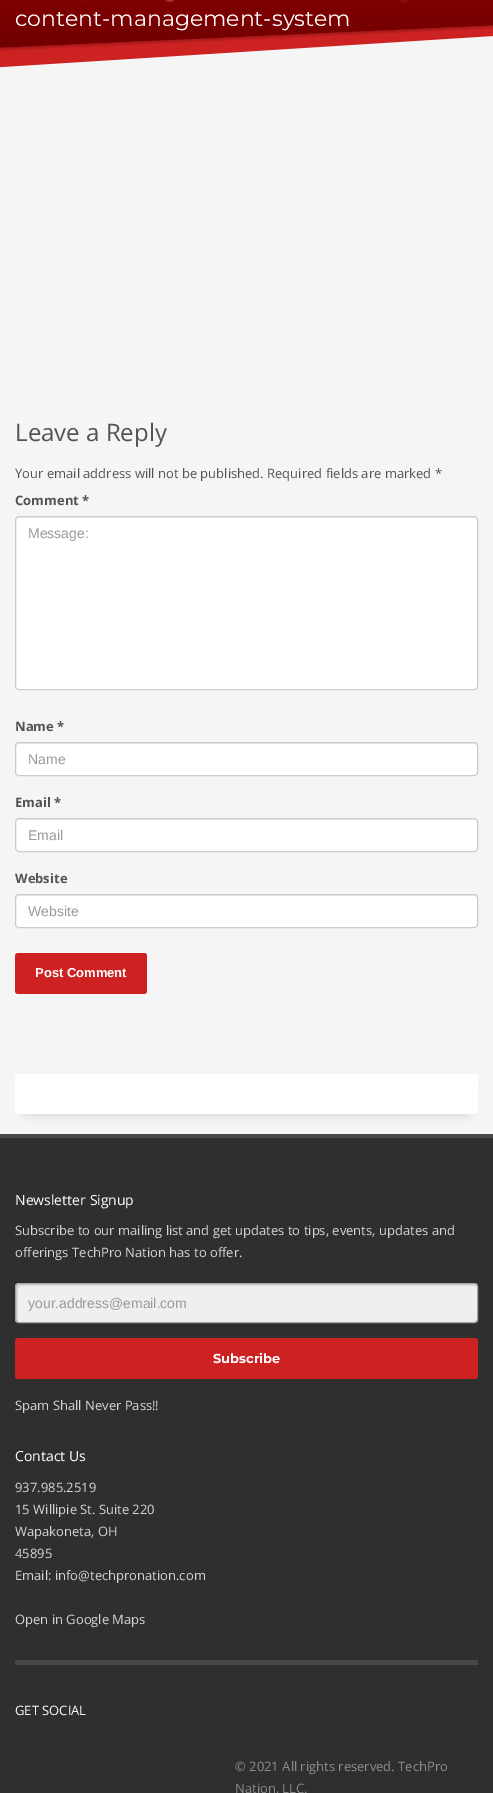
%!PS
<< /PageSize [493 1793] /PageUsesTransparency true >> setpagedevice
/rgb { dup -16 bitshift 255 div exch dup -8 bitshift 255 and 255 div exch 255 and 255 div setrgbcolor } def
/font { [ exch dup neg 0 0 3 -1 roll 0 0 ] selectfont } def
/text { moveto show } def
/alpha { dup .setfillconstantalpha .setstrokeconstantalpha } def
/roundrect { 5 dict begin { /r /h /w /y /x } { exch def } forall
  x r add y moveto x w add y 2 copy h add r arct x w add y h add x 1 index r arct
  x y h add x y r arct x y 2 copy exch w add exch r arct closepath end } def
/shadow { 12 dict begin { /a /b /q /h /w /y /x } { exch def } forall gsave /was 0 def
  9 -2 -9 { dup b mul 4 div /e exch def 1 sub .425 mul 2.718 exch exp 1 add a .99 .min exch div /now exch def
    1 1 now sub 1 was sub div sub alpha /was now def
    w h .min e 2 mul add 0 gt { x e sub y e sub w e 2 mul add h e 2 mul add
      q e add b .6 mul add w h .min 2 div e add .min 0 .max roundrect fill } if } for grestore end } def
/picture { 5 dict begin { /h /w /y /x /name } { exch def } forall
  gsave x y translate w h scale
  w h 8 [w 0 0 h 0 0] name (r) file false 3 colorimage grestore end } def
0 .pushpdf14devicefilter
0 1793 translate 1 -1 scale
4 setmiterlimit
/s1 { /Montserrat-Regular 22 font 16#FFFFFF rgb } def
/s2 { /OpenSans-Regular 24 font 16#535353 rgb } def
/s3 { /OpenSans-Regular 13 font 16#535353 rgb } def
/s4 { /OpenSans-Bold 13 font 16#535353 rgb } def
/s5 { /LiberationSans-Regular 14 font 16#999999 rgb } def
/s6 { /LiberationSans-Bold 13 font 16#FFFFFF rgb } def
/s7 { /OpenSans-Regular 14 font 16#FFFFFF rgb } def
/s8 { /OpenSans-Regular 13 font 16#D5D5D5 rgb } def
/s9 { /Montserrat-Bold 13 font 16#FFFFFF rgb } def
/s10 { /OpenSans-Regular 13 font 16#FFFFFF rgb } def
/s11 { /OpenSans-Regular 13 font 16#8B8C8D rgb } def
16#F5F5F5 rgb
0 0 493 1793 rectfill
gsave 0 0 moveto 493 0 lineto 493 48 lineto 0 48 lineto closepath clip newpath
<< /ShadingType 2 /ColorSpace /DeviceRGB /Coords [246 -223 247 77] /Extend [true true] /Function << /FunctionType 2 /Domain [0 1] /C0 [0.8 0 0] /C1 [0.4 0 0] /N 1 >> >> shfill grestore
gsave 75 0 moveto 90 0 lineto 90 1 lineto 75 1 lineto closepath clip newpath 83 -4.5 translate 11 11 scale
<< /ShadingType 3 /ColorSpace /DeviceRGB /Coords [0 0 0 0 0 1] /Extend [true true] /Function << /FunctionType 3 /Domain [0 1] /Functions [<< /FunctionType 2 /Domain [0 1] /C0 [0.553 0.102 0.102] /C1 [0.502 0 0] /N 1 >> << /FunctionType 2 /Domain [0 1] /C0 [0.502 0 0] /C1 [0.502 0 0] /N 1 >>] /Bounds [0.6] /Encode [0 1 0 1] >> >> shfill grestore
gsave 162 0 moveto 177 0 lineto 177 3 lineto 162 3 lineto closepath clip newpath 170 -3.5 translate 11 11 scale
<< /ShadingType 3 /ColorSpace /DeviceRGB /Coords [0 0 0 0 0 1] /Extend [true true] /Function << /FunctionType 3 /Domain [0 1] /Functions [<< /FunctionType 2 /Domain [0 1] /C0 [0.851 0.702 0.702] /C1 [0.502 0 0] /N 1 >> << /FunctionType 2 /Domain [0 1] /C0 [0.502 0 0] /C1 [0.502 0 0] /N 1 >>] /Bounds [0.6] /Encode [0 1 0 1] >> >> shfill grestore
gsave 396 0 moveto 411 0 lineto 411 4 lineto 396 4 lineto closepath clip newpath 404 -1.5 translate 11 11 scale
<< /ShadingType 3 /ColorSpace /DeviceRGB /Coords [0 0 0 0 0 1] /Extend [true true] /Function << /FunctionType 3 /Domain [0 1] /Functions [<< /FunctionType 2 /Domain [0 1] /C0 [0.549 0.102 0.102] /C1 [0.498 0 0] /N 1 >> << /FunctionType 2 /Domain [0 1] /C0 [0.498 0 0] /C1 [0.498 0 0] /N 1 >>] /Bounds [0.6] /Encode [0 1 0 1] >> >> shfill grestore
s1
(content-management-system) 15 26 text
(pic1.raw) 0 25 493 52 picture
s2
(Leave a Reply) 15 441 text
s3
(Your email address will not be published. Required fields are marked *) 15 478 text
s4
(Comment *) 15 505 text
16#FFFFFF rgb
15 516 463 174 4 roundrect fill
16#ECECEC rgb
19 518 moveto 474 518 lineto 476 518 477 519 477 521 curveto 477 520 lineto 477 518 476 517 474 517 curveto 19 517 lineto 17 517 16 518 16 520 curveto 16 521 lineto 16 519 17 518 19 518 curveto closepath fill
16#CCCCCC rgb
15.5 516.5 462 173 3.5 roundrect stroke
s5
(Message:) 28 538 text
s4
(Name *) 15 731 text
16#FFFFFF rgb
15 742 463 34 4 roundrect fill
16#ECECEC rgb
19 744 moveto 474 744 lineto 476 744 477 745 477 747 curveto 477 746 lineto 477 744 476 743 474 743 curveto 19 743 lineto 17 743 16 744 16 746 curveto 16 747 lineto 16 745 17 744 19 744 curveto closepath fill
16#CCCCCC rgb
15.5 742.5 462 33 3.5 roundrect stroke
s5
(Name) 28 764 text
s4
(Email *) 15 807 text
16#FFFFFF rgb
15 818 463 34 4 roundrect fill
16#ECECEC rgb
19 820 moveto 474 820 lineto 476 820 477 821 477 823 curveto 477 822 lineto 477 820 476 819 474 819 curveto 19 819 lineto 17 819 16 820 16 822 curveto 16 823 lineto 16 821 17 820 19 820 curveto closepath fill
16#CCCCCC rgb
15.5 818.5 462 33 3.5 roundrect stroke
s5
(Email) 28 840 text
s4
(Website) 15 883 text
16#FFFFFF rgb
15 894 463 34 4 roundrect fill
16#ECECEC rgb
19 896 moveto 474 896 lineto 476 896 477 897 477 899 curveto 477 898 lineto 477 896 476 895 474 895 curveto 19 895 lineto 17 895 16 896 16 898 curveto 16 899 lineto 16 897 17 896 19 896 curveto closepath fill
16#CCCCCC rgb
15.5 894.5 462 33 3.5 roundrect stroke
s5
(Website) 28 916 text
16#CD2122 rgb
15 953 132 41 3 roundrect fill
s6
(Post Comment) 35 977 text
16#000000 rgb
25 1094 443 20 0 5 0.15 shadow
16#FFFFFF rgb
15 1074 463 40 3 roundrect fill
16#2F2F2F rgb
0 1138 493 655 rectfill
16#484848 rgb
0 1134 493 4 rectfill
s7
(Newsletter Signup) 15 1205 text
s8
(Subscribe to our mailing list and get updates to tips, events, updates and) 15 1235 text
(offerings TechPro Nation has to offer.) 15 1257 text
16#EFEFEF rgb
15 1283 463 40 4 roundrect fill
16#D7D7D7 rgb
21 1286 moveto 477 1286 lineto 476 1285 475 1284 474 1284 curveto 19 1284 lineto 17 1284 16 1285 16 1287 curveto 16 1319 lineto 16 1320 17 1321 18 1322 curveto 18 1294 lineto 18 1292 17 1286 21 1286 curveto closepath fill
16#A3A3A3 rgb
15.5 1283.5 462 39 3.5 roundrect stroke
s5
(your.address@email.com) 28 1308 text
16#CD2122 rgb
15 1338 463 41 3 roundrect fill
s9
(Subscribe) 213 1363 text
s8
(Spam Shall Never Pass!!) 15 1410 text
s7
(Contact Us) 15 1461 text
s8
(937.985.2519) 15 1492 text
(15 Willipie St. Suite 220) 15 1514 text
(Wapakoneta, OH) 15 1536 text
(45895) 15 1558 text
(Email: info@techpronation.com) 15 1580 text
(Open in Google Maps) 15 1624 text
16#484848 rgb
15 1660 463 5 rectfill
s10
(GET SOCIAL) 15 1715 text
s11
(© 2021 All rights reserved. TechPro) 235 1771 text
(Nation, LLC.) 235 1793 text
.poppdf14devicefilter showpage
